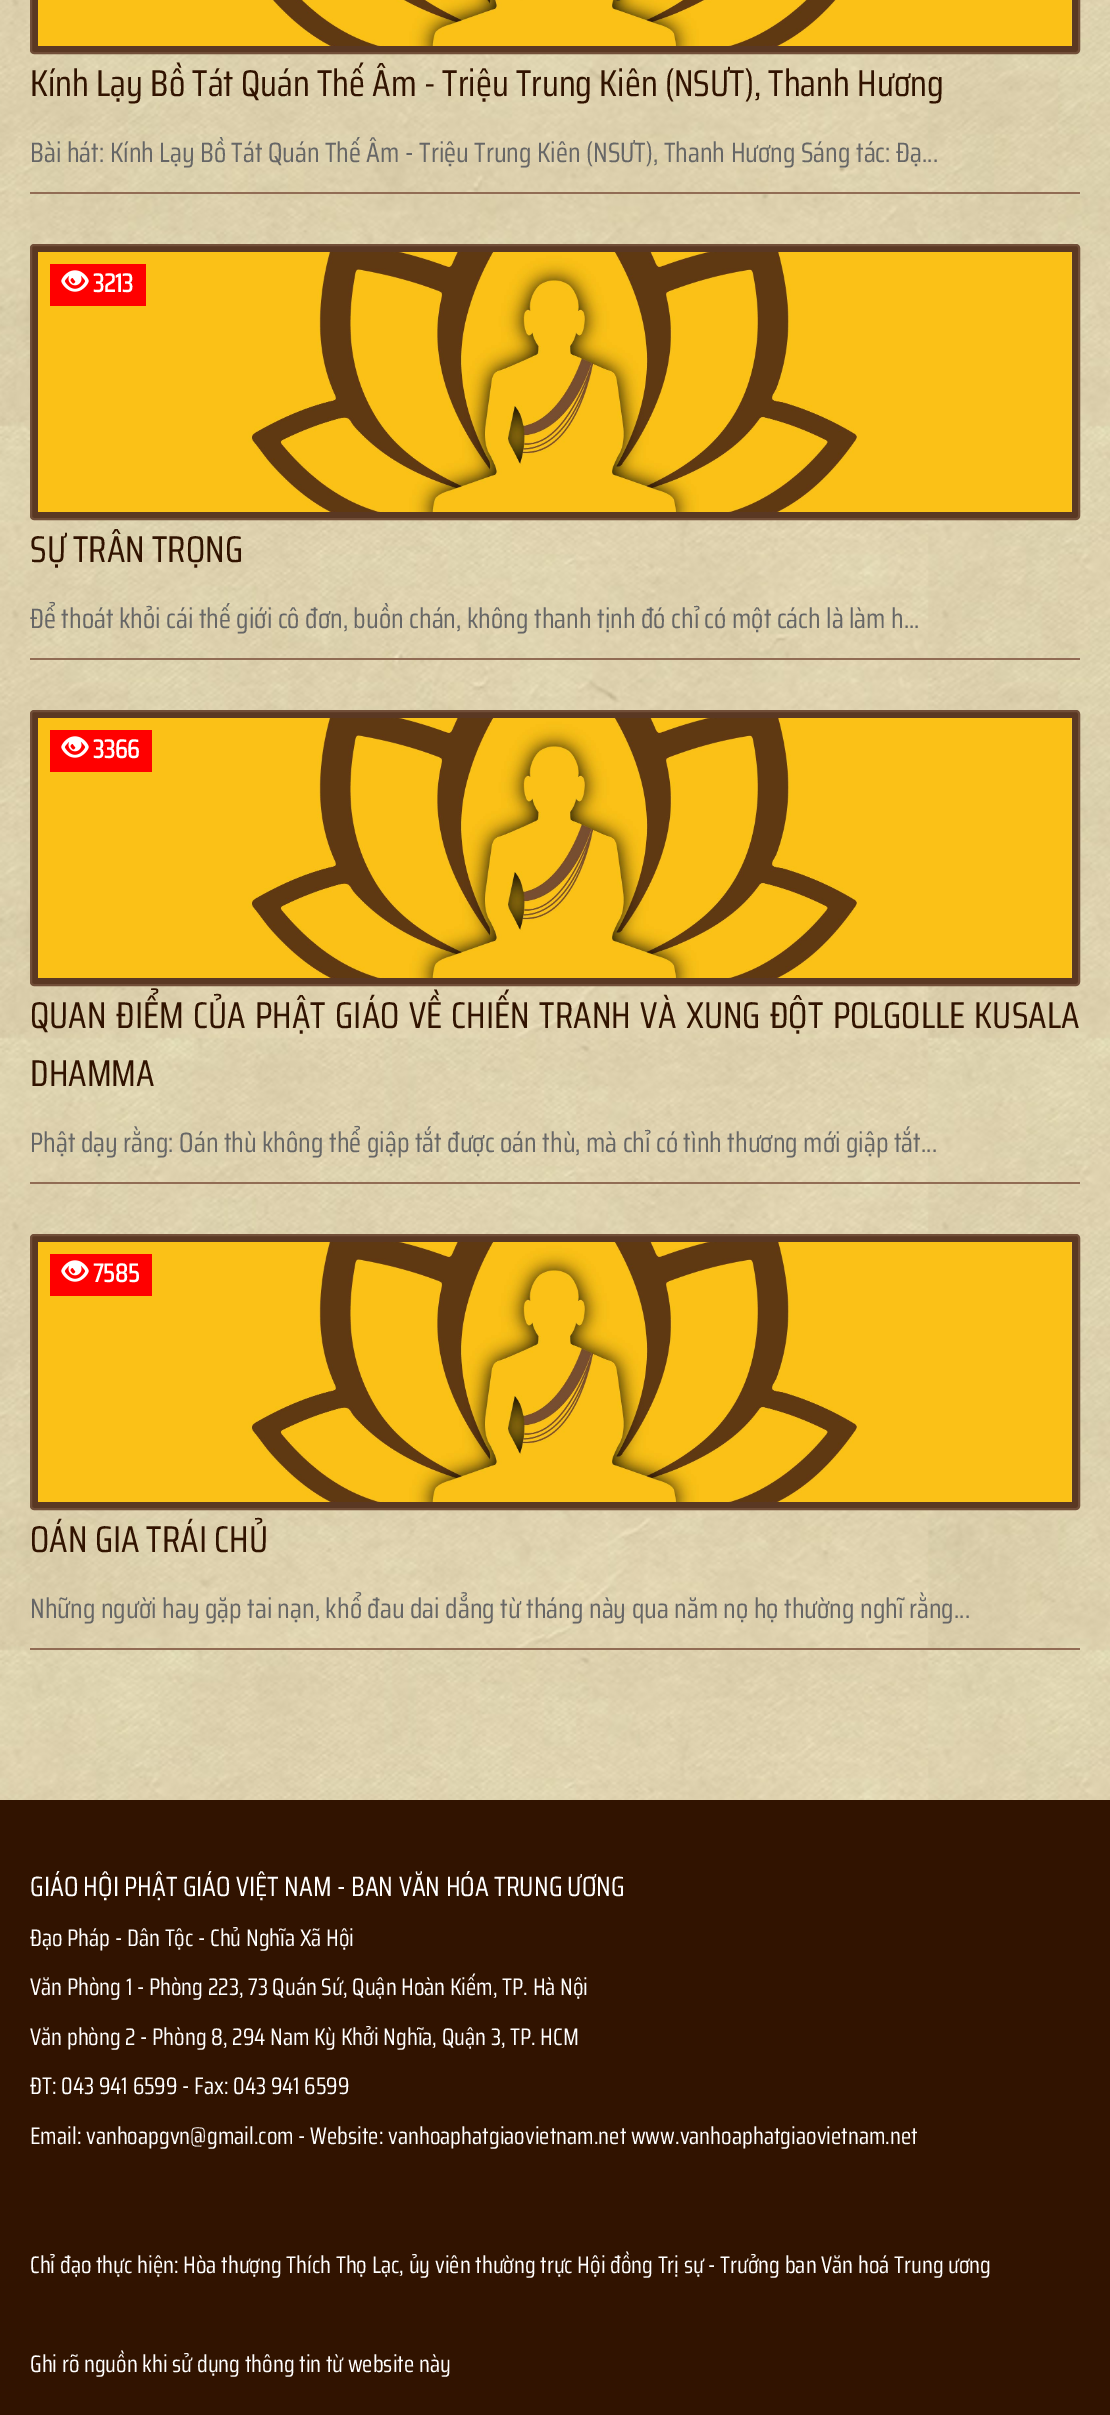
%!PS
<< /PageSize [1110 2415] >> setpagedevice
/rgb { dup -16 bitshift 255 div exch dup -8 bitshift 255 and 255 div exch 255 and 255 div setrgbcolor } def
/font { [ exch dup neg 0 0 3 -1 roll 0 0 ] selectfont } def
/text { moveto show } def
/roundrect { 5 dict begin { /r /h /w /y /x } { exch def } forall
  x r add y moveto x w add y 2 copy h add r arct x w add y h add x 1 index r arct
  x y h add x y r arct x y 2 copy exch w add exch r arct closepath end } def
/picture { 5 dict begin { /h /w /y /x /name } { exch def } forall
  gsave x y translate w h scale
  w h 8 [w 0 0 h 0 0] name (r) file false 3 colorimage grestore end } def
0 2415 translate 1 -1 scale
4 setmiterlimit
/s1 { /SairaCondensed-Regular 37.3 font 16#311300 rgb } def
/s2 { /SairaCondensed-Regular 28 font 16#666666 rgb } def
/s3 { /SairaCondensed-Bold 26 font 16#FFFFFF rgb } def
/s4 { /SairaCondensed-Regular 28 font 16#FFFFFF rgb } def
/s5 { /SairaCondensed-Regular 24 font 16#FFFFFF rgb } def
16#FFFFFF rgb
0 0 1110 2415 rectfill
(pic1.raw) 0 0 1110 1800 picture
16#916C54 rgb
30 192 1050 2 rectfill
16#5A3823 rgb
31 -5 1048 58 3 roundrect gsave fill grestore
16#714E38 rgb
2 setlinewidth
stroke
(pic2.raw) 38 0 1034 46 picture
s1
(Kính Lạy Bồ Tát Quán Thế Âm - Triệu Trung Kiên \(NSƯT\), Thanh Hương) 30 96 text
s2
(Bài hát: Kính Lạy Bồ Tát Quán Thế Âm - Triệu Trung Kiên \(NSƯT\), Thanh Hương Sáng tác: Đạ...) 30 162 text
16#916C54 rgb
30 658 1050 2 rectfill
16#5A3823 rgb
31 245 1048 274 3 roundrect gsave fill grestore
16#714E38 rgb
stroke
(pic3.raw) 38 252 1034 260 picture
16#FF0000 rgb
50 264 96 42 rectfill
(pic4.raw) 61 270 28 22 picture
s3
(3213) 93 292 text
s1
(SỰ TRÂN TRỌNG) 30 562 text
s2
(Để thoát khỏi cái thế giới cô đơn, buồn chán, không thanh tịnh đó chỉ có một cách là làm h...) 30 628 text
16#916C54 rgb
30 1182 1050 2 rectfill
16#5A3823 rgb
31 711 1048 274 3 roundrect gsave fill grestore
16#714E38 rgb
stroke
(pic3.raw) 38 718 1034 260 picture
16#FF0000 rgb
50 730 102 42 rectfill
(pic4.raw) 61 736 28 22 picture
s3
(3366) 93 758 text
/SairaCondensed-Regular 37.3 font
16#311300 rgb
30 1028 moveto 2.25 0 32 (QUAN ĐIỂM CỦA PHẬT GIÁO VỀ CHIẾN TRANH VÀ XUNG ĐỘT POLGOLLE KUSALA) widthshow
(DHAMMA) 30 1086 text
s2
(Phật dạy rằng: Oán thù không thể giập tắt được oán thù, mà chỉ có tình thương mới giập tắt...) 30 1152 text
16#916C54 rgb
30 1648 1050 2 rectfill
16#5A3823 rgb
31 1235 1048 274 3 roundrect gsave fill grestore
16#714E38 rgb
stroke
(pic3.raw) 38 1242 1034 260 picture
16#FF0000 rgb
50 1254 102 42 rectfill
(pic4.raw) 61 1260 28 22 picture
s3
(7585) 93 1282 text
s1
(OÁN GIA TRÁI CHỦ) 30 1552 text
s2
(Những người hay gặp tai nạn, khổ đau dai dẳng từ tháng này qua năm nọ họ thường nghĩ rằng...) 30 1618 text
16#311300 rgb
0 1800 1110 615 rectfill
s4
(GIÁO HỘI PHẬT GIÁO VIỆT NAM - BAN VĂN HÓA TRUNG ƯƠNG) 30 1896 text
s5
(Đạo Pháp - Dân Tộc - Chủ Nghĩa Xã Hội) 30 1946 text
(Văn Phòng 1 - Phòng 223, 73 Quán Sứ, Quận Hoàn Kiếm, TP. Hà Nội) 30 1995 text
(Văn phòng 2 - Phòng 8, 294 Nam Kỳ Khởi Nghĩa, Quận 3, TP. HCM) 30 2045 text
(ĐT: 043 941 6599 - Fax: 043 941 6599) 30 2094 text
(Email: vanhoapgvn@gmail.com - Website: vanhoaphatgiaovietnam.net www.vanhoaphatgiaovietnam.net) 30 2144 text
(Chỉ đạo thực hiện: Hòa thượng Thích Thọ Lạc, ủy viên thường trực Hội đồng Trị sự - Trưởng ban Văn hoá Trung ương) 30 2273 text
(Ghi rõ nguồn khi sử dụng thông tin từ website này) 30 2372 text
showpage
